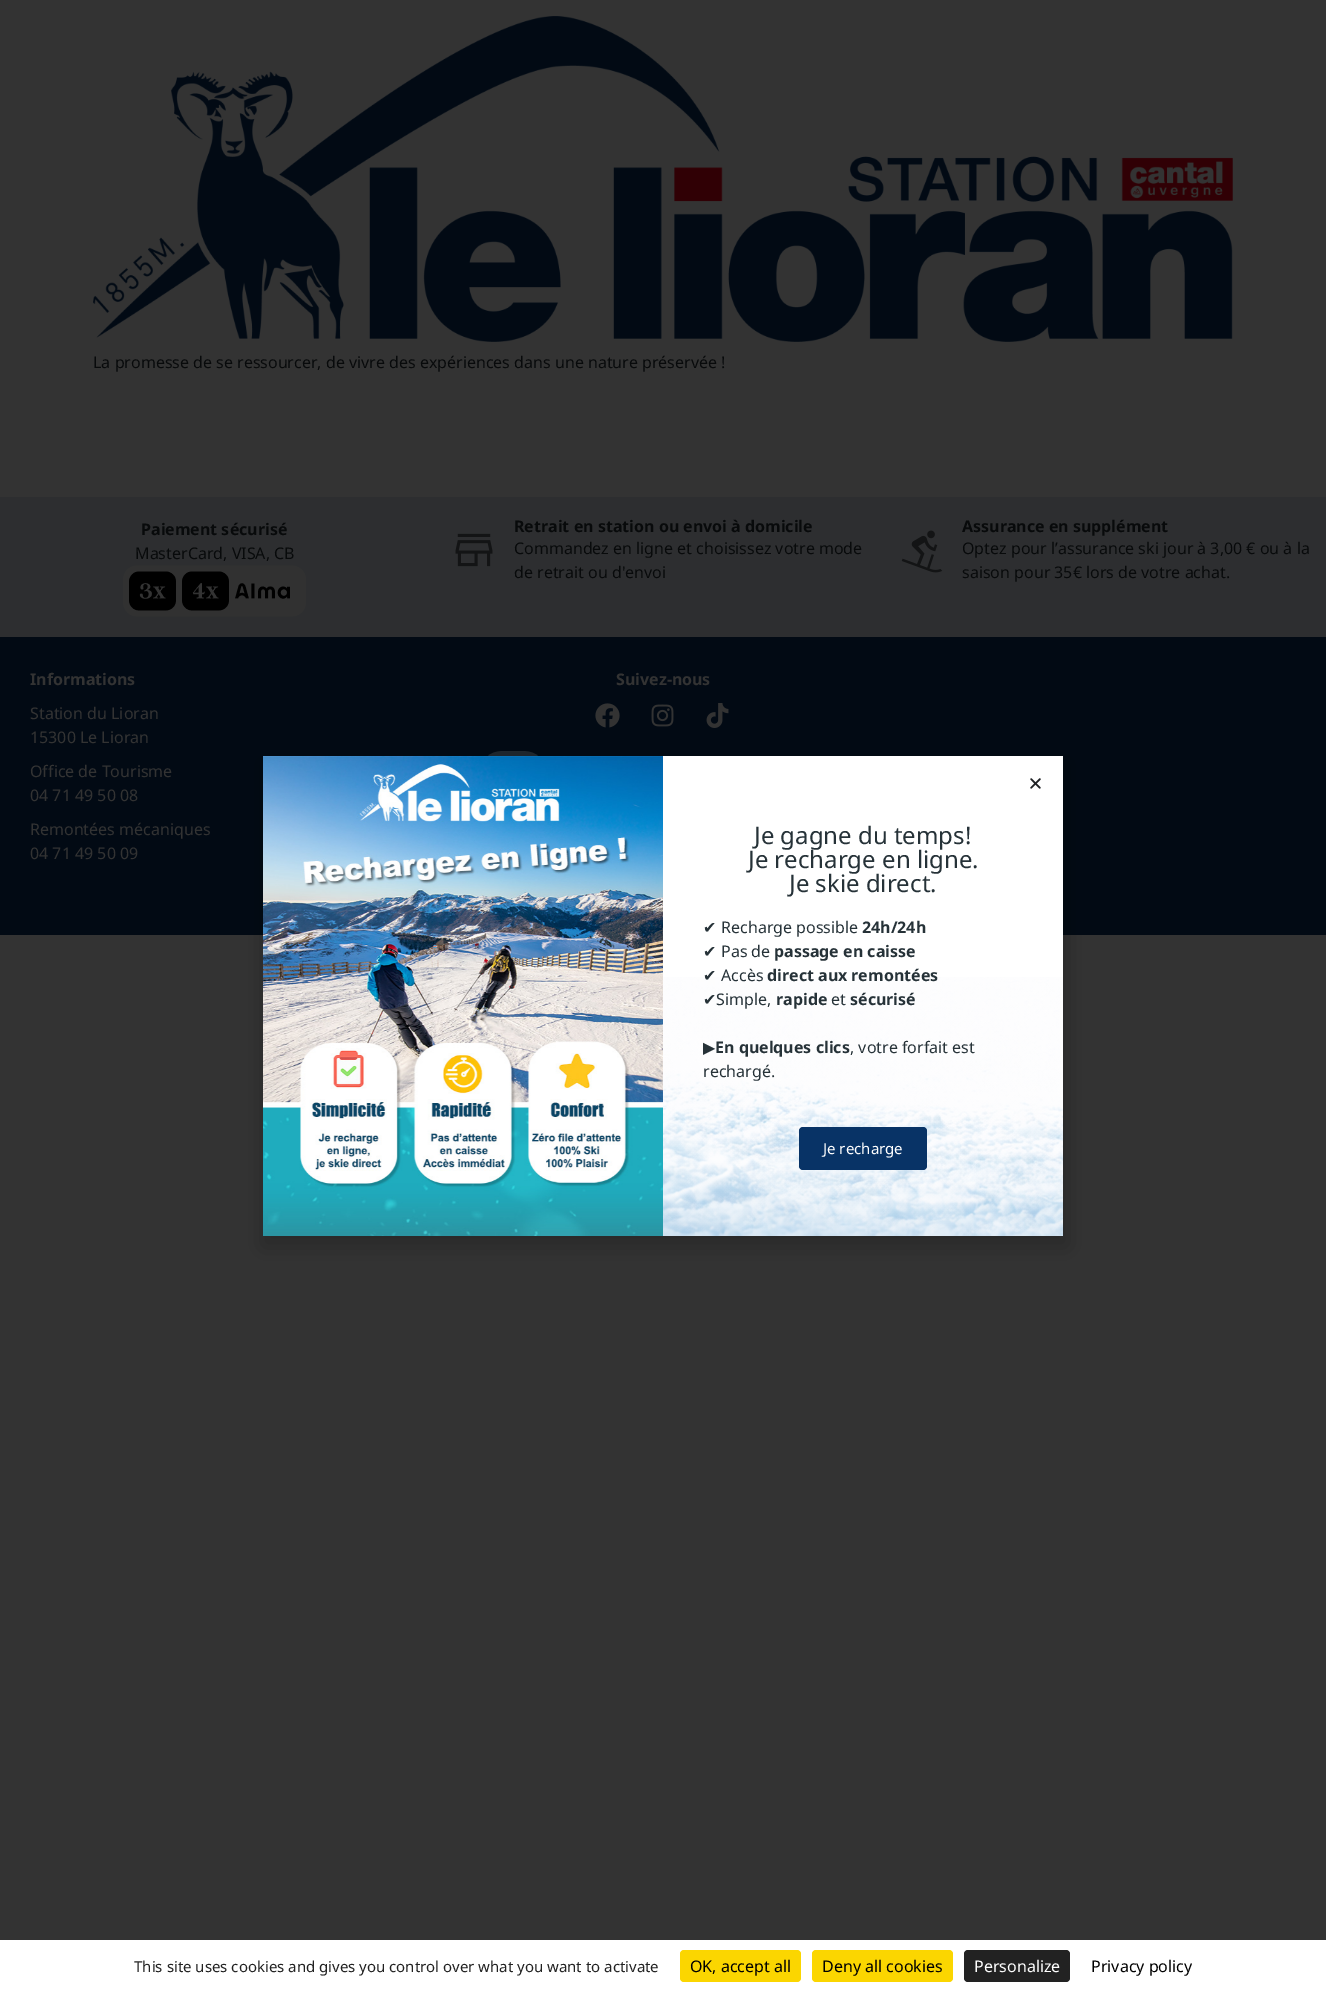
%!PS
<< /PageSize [1326 1992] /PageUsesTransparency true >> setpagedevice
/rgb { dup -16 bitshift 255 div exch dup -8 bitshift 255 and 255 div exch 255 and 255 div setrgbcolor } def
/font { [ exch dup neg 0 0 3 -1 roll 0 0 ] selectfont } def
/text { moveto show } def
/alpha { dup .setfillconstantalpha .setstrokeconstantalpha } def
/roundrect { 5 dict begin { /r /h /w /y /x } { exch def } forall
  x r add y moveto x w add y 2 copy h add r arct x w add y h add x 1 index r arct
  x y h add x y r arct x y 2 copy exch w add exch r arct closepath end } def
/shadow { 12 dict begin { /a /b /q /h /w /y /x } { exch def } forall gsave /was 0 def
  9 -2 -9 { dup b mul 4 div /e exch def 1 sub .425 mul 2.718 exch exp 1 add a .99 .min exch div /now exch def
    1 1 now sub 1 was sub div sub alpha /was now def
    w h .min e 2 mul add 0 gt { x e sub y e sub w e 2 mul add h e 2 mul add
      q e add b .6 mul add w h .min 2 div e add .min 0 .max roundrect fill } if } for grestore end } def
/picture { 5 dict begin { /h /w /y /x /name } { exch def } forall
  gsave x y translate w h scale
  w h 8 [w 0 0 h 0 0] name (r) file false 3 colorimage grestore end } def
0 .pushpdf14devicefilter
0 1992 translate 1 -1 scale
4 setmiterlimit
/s1 { /NotoSans-Regular 16 font 16#080A0B rgb } def
/s2 { /NotoSans-Bold 16 font 16#080A0B rgb } def
/s3 { /NotoSans-Bold 16 font 16#333333 rgb } def
/s4 { /NotoSans-Regular 16 font 16#333333 rgb } def
/s5 { /NotoSans-Regular 24 font 16#263238 rgb } def
/s6 { /DejaVuSans-Regular 16 font 16#263238 rgb } def
/s7 { /NotoSans-Regular 16 font 16#263238 rgb } def
/s8 { /NotoSans-Bold 16 font 16#263238 rgb } def
/s9 { /NotoSans-Regular 15 font 16#FFFFFF rgb } def
/s10 { /NotoSans-Regular 15 font 16#222222 rgb } def
/s11 { /NotoSans-Regular 16 font 16#000000 rgb } def
/s12 { /NotoSans-Regular 16 font 16#FFFFFF rgb } def
16#333333 rgb
0 0 1326 1992 rectfill
(pic1.raw) 93 16 1140 326 picture
s1
(La promesse de se ressourcer, de vivre des expériences dans une nature préservée !) 93 368 text
16#2D2E30 rgb
0 497 1326 140 rectfill
s2
(Paiement sécurisé) 141 535 text
s1
(MasterCard, VISA, CB) 135 559 text
(pic2.raw) 123 565 183 52 picture
(pic3.raw) 455 533 38 34 picture
s2
(Retrait en station ou envoi à domicile) 514 532 text
s1
(Commandez en ligne et choisissez votre mode) 514 554 text
(de retrait ou d'envoi) 514 578 text
(pic4.raw) 901 530 42 43 picture
s2
(Assurance en supplément) 962 532 text
s1
(Optez pour l’assurance ski jour à 3,00 € ou à la) 962 554 text
(saison pour 35€ lors de votre achat.) 962 578 text
16#020A14 rgb
0 637 1326 298 rectfill
s3
(Informations) 30 685 text
s4
(Station du Lioran) 30 719 text
(15300 Le Lioran) 30 743 text
(Office de Tourisme) 30 777 text
(04 71 49 50 08) 30 801 text
(Remontées mécaniques) 30 835 text
(04 71 49 50 09) 30 859 text
s3
(Suivez-nous) 616 685 text
(pic5.raw) 595 703 25 25 picture
(pic6.raw) 651 704 23 23 picture
(pic7.raw) 706 703 23 25 picture
(pic8.raw) 487 751 52 5 picture
16#000000 rgb
262 761 806 486 0 11.5 0.2 shadow
16#FFFFFF rgb
663 756 400 221 rectfill
(pic9.raw) 1030 778 11 11 picture
(pic10.raw) 263 756 400 480 picture
(pic11.raw) 663 977 400 259 picture
s5
(Je gagne du temps!) 754 844 text
(Je recharge en ligne.) 748 868 text
(Je skie direct.) 789 892 text
s6
(✔) 703 933 text
s7
(Recharge possible) 721 933 text
s8
(24h/24h) 862 933 text
s6
(✔) 703 957 text
s7
(Pas de) 721 957 text
s8
(passage en caisse) 774 957 text
s6
(✔) 703 981 text
s7
(Accès) 721 981 text
s8
(direct aux remontées) 767 981 text
s6
(✔) 703 1005 text
s7
(Simple,) 716 1005 text
s8
(rapide) 776 1005 text
s7
(et) 831 1005 text
s8
(sécurisé) 850 1005 text
s6
(▶) 703 1053 text
s8
(En quelques clics) 715 1053 text
s7
(, votre forfait est) 850 1053 text
(rechargé.) 703 1077 text
16#083366 rgb
799 1127 128 43 4 roundrect fill
s9
(Je recharge) 823 1154 text
0 1940 1326 52 rectfill
s10
(This site uses cookies and gives you control over what you want to activate) 134 1972 text
16#FBD600 rgb
680 1950 121 32 4 roundrect fill
s11
(OK, accept all) 690 1972 text
16#FBD600 rgb
812 1950 141 32 4 roundrect fill
s11
(Deny all cookies) 822 1972 text
16#222222 rgb
964 1950 106 32 4 roundrect fill
s12
(Personalize) 974 1972 text
s11
(Privacy policy) 1091 1972 text
.poppdf14devicefilter showpage
